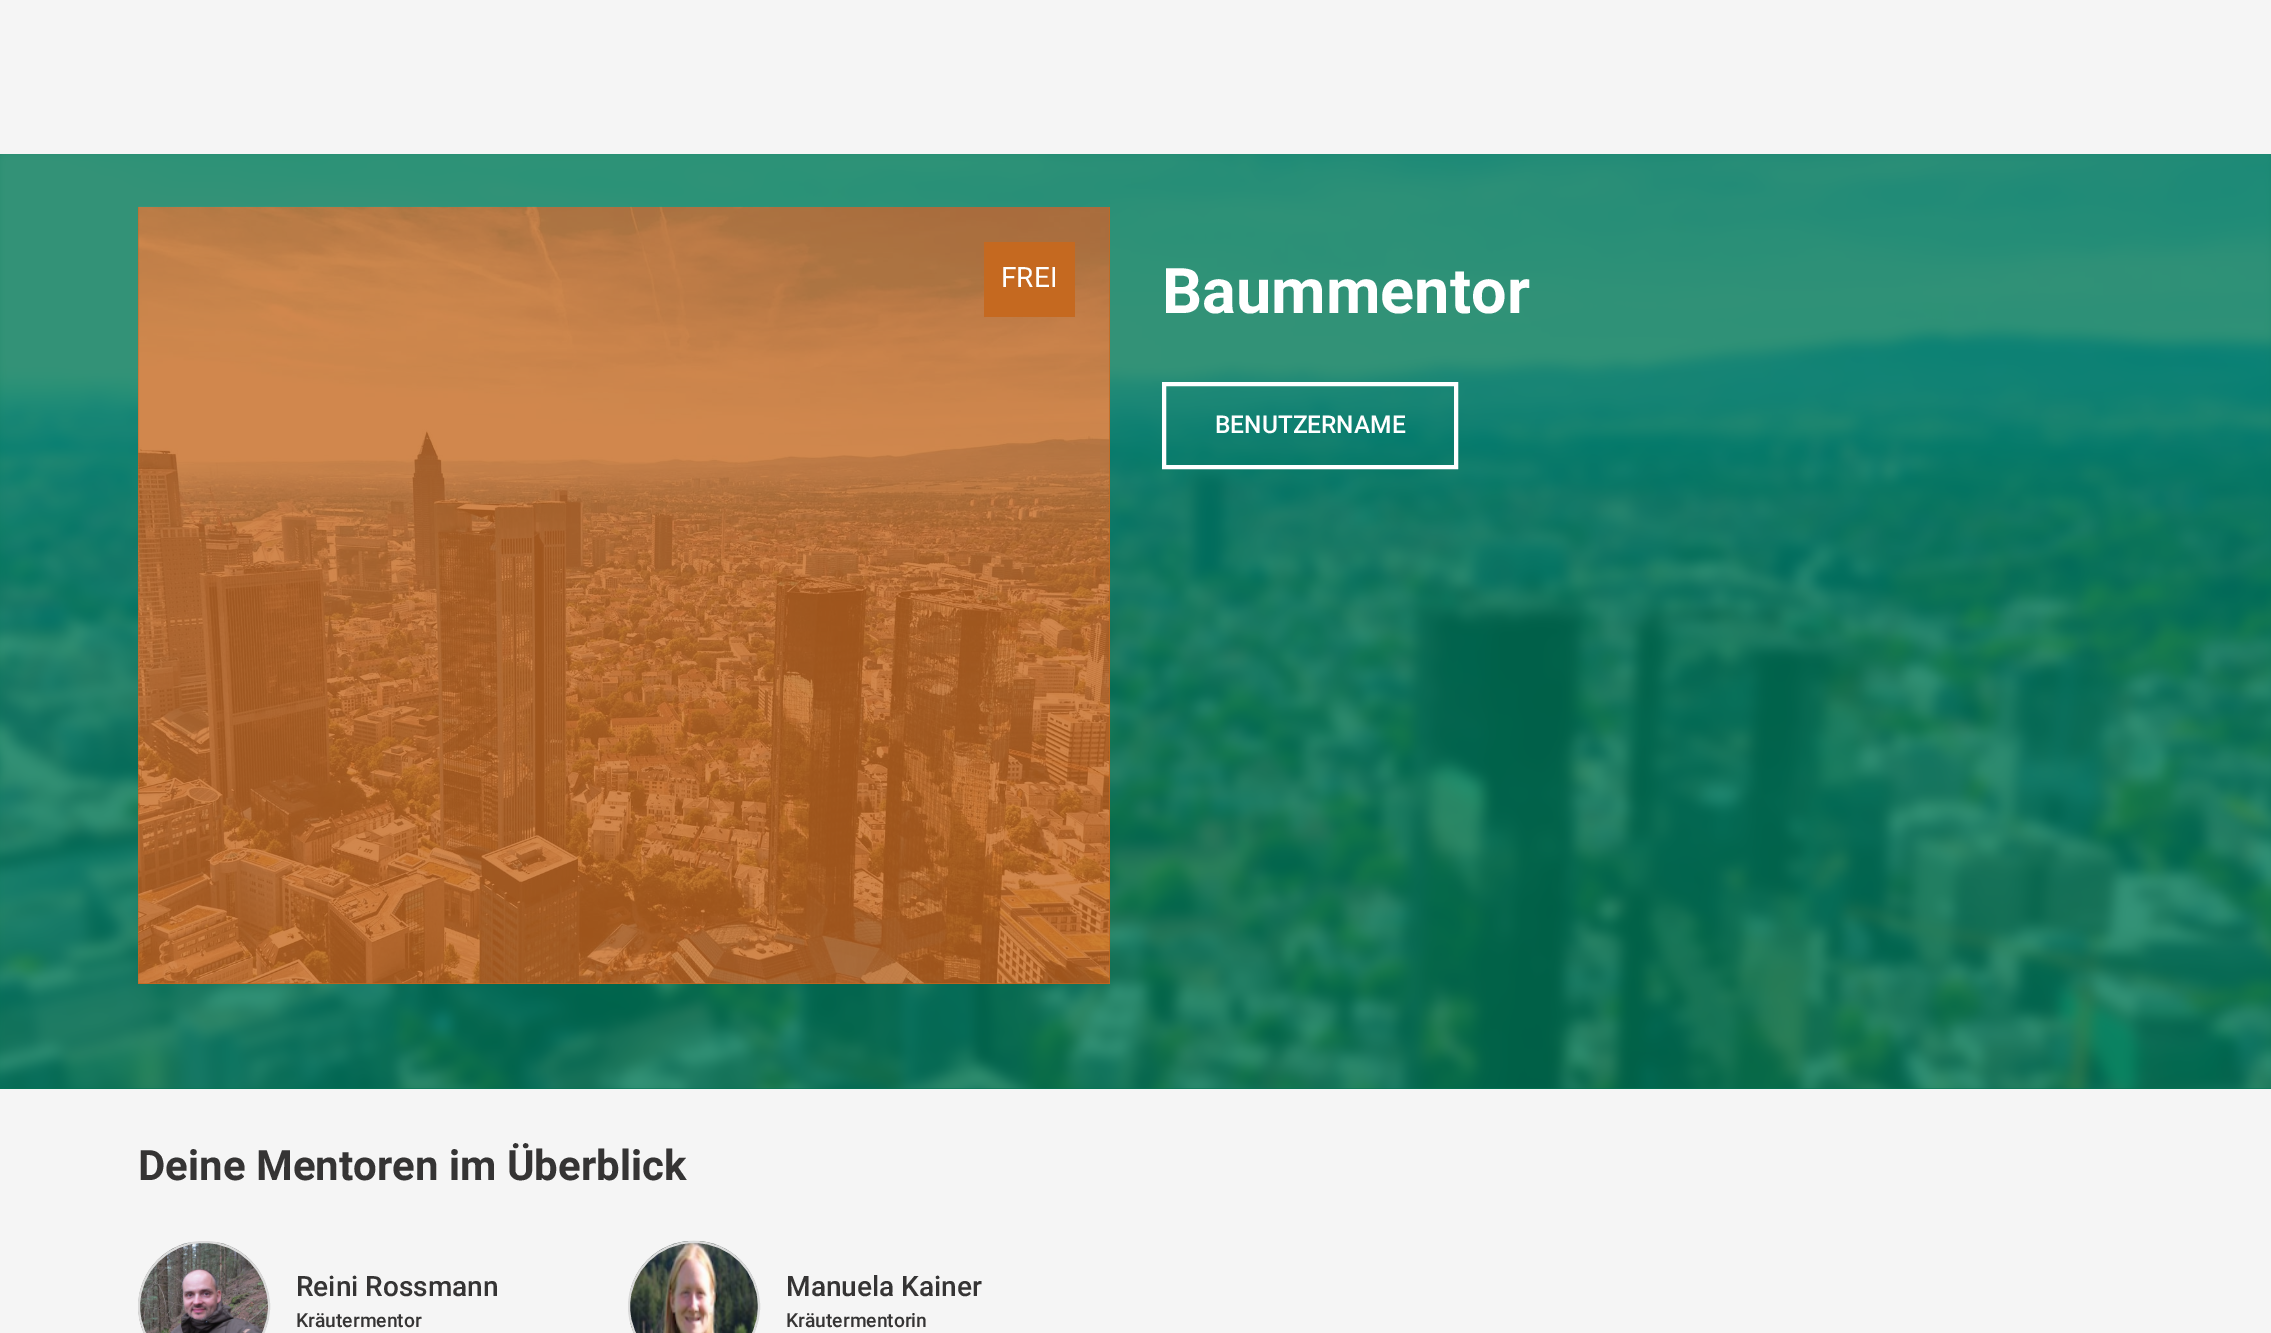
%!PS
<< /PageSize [2271 1333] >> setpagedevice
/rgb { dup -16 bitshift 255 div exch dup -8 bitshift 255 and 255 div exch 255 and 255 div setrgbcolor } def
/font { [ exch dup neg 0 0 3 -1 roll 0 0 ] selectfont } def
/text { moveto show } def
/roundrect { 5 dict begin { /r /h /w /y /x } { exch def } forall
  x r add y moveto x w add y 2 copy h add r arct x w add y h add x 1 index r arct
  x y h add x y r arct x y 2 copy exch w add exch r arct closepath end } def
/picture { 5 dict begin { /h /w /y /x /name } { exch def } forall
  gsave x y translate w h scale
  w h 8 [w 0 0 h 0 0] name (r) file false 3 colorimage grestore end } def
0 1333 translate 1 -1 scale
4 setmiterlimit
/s1 { /Roboto-Regular 28 font 16#FFFFFF rgb } def
/s2 { /Roboto-Bold 63 font 16#FFFFFF rgb } def
/s3 { /Roboto-Medium 24.5 font 16#FFFFFF rgb } def
/s4 { /Roboto-Bold 42 font 16#353434 rgb } def
/s5 { /Roboto-Medium 28 font 16#353434 rgb } def
/s6 { /Roboto-Medium 19.25 font 16#353434 rgb } def
16#F5F5F5 rgb
0 0 2271 1333 rectfill
16#007755 rgb
0 154 2271 935 rectfill
(pic1.raw) 0 154 2271 935 picture
16#C56920 rgb
138 207 972 777 rectfill
(pic2.raw) 138 206 972 778 picture
984 242 91 75 rectfill
s1
(FREI) 1001 287 text
s2
(Baummentor) 1162 313 text
4 setlinewidth
1164 384 292 83 rectstroke
s3
(BENUTZERNAME) 1215 433 text
s4
(Deine Mentoren im Überblick) 138 1180 text
(pic3.raw) 138 1242 132 91 picture
16#DADADA rgb
2 setlinewidth
139 1242 130 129 64.5 roundrect stroke
s5
(Reini Rossmann) 296 1296 text
s6
(Kräutermentor) 296 1327 text
(pic4.raw) 630 1240 128 93 picture
16#DADADA rgb
629 1242 130 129 64.5 roundrect stroke
s5
(Manuela Kainer) 786 1296 text
s6
(Kräutermentorin) 786 1327 text
showpage
